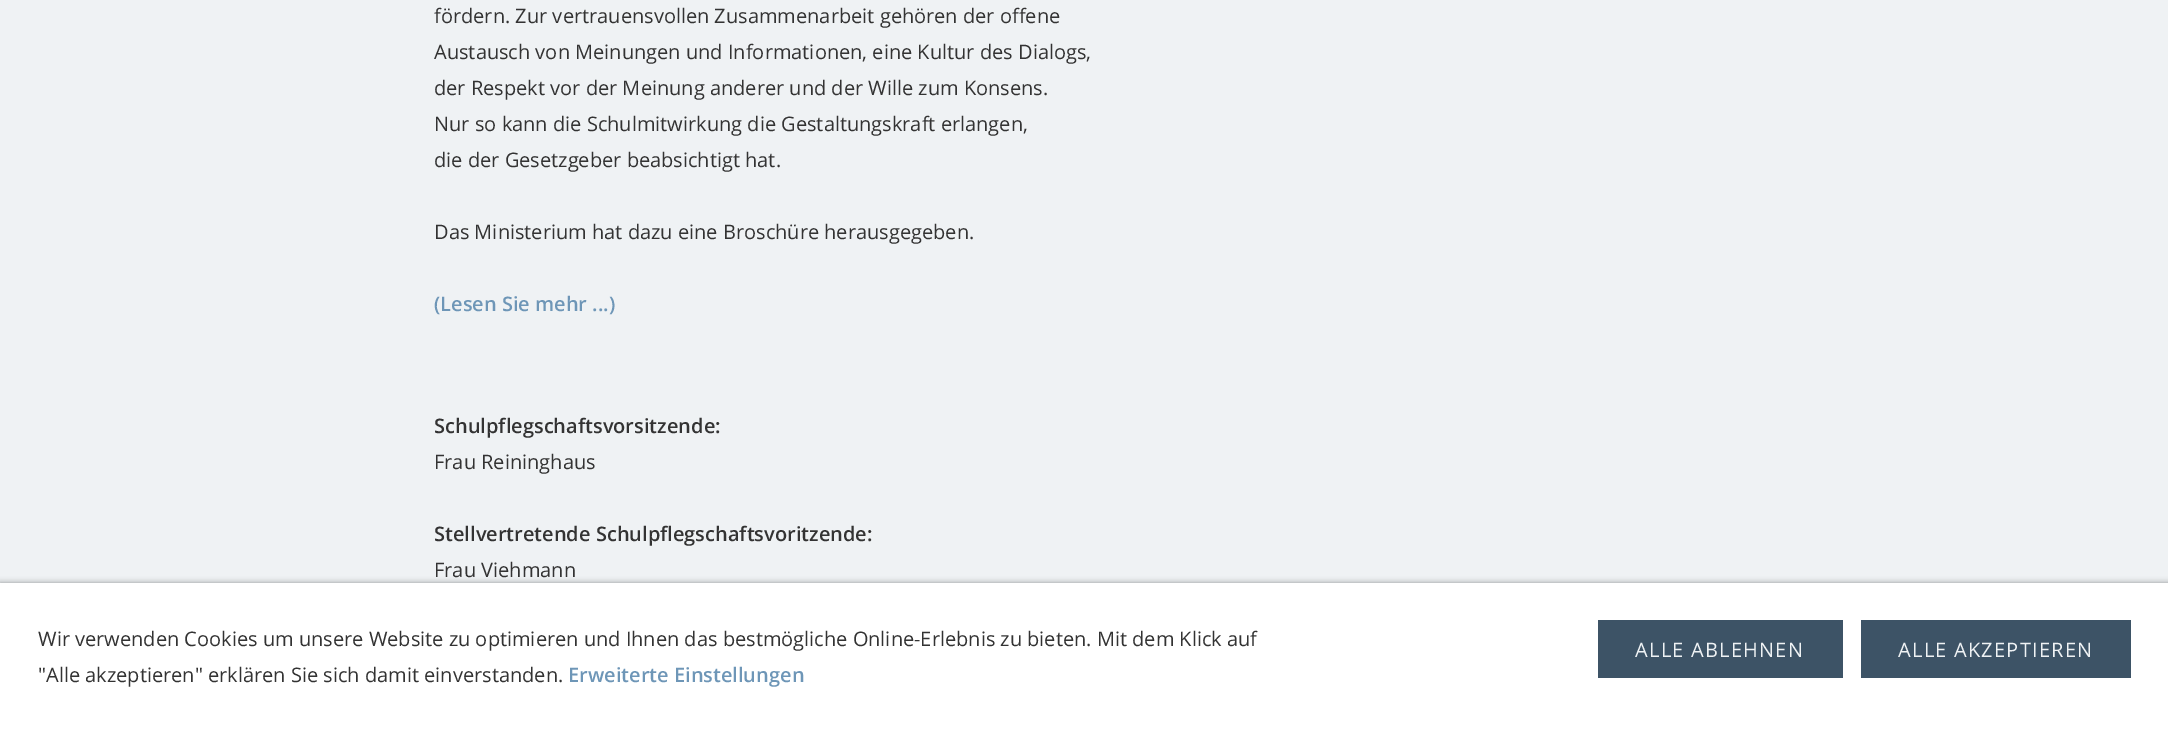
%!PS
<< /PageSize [2168 730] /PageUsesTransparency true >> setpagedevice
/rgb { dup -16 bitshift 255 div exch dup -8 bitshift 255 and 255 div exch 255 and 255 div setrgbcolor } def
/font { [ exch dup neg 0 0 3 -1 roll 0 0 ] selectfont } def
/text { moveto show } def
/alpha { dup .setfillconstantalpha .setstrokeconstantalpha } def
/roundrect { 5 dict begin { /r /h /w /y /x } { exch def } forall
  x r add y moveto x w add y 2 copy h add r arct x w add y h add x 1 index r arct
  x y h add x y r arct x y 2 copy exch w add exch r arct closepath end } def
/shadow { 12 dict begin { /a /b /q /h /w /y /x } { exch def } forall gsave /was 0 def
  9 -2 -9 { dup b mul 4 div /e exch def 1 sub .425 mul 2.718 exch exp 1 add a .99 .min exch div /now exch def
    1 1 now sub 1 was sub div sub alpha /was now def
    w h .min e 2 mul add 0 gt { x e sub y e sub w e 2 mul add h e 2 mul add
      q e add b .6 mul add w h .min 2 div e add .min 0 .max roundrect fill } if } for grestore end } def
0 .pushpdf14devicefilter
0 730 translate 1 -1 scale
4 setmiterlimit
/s1 { /OpenSans-Regular 20 font 16#333333 rgb } def
/s2 { /OpenSans-SemiBold 20 font 16#6E96B7 rgb } def
/s3 { /OpenSans-SemiBold 20 font 16#333333 rgb } def
16#EFF2F4 rgb
0 0 2168 730 rectfill
s1
(fördern. Zur vertrauensvollen Zusammenarbeit gehören der offene) 434 23 text
(Austausch von Meinungen und Informationen, eine Kultur des Dialogs,) 434 59 text
(der Respekt vor der Meinung anderer und der Wille zum Konsens.) 434 95 text
(Nur so kann die Schulmitwirkung die Gestaltungskraft erlangen,) 434 131 text
(die der Gesetzgeber beabsichtigt hat.) 434 167 text
(Das Ministerium hat dazu eine Broschüre herausgegeben.) 434 239 text
s2
(\(Lesen Sie mehr ...\)) 434 311 text
s3
(Schulpflegschaftsvorsitzende:) 434 433 text
s1
(Frau Reininghaus) 434 469 text
s3
(Stellvertretende Schulpflegschaftsvoritzende:) 434 541 text
s1
(Frau Viehmann) 434 577 text
16#000000 rgb
0 583 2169 147 0 3 0.4 shadow
16#FFFFFF rgb
0 583 2168 147 rectfill
s1
(Wir verwenden Cookies um unsere Website zu optimieren und Ihnen das bestmögliche Online-Erlebnis zu bieten. Mit dem Klick auf) 38 646 text
("Alle akzeptieren" erklären Sie sich damit einverstanden.) 38 682 text
s2
(Erweiterte Einstellungen) 568 682 text
16#3D5366 rgb
1598 620 245 58 rectfill
/OpenSans-Regular 20 font
16#EFF2F4 rgb
1635 657 moveto 1.25 0 (ALLE ABLEHNEN) ashow
16#3D5366 rgb
1861 620 270 58 rectfill
16#EFF2F4 rgb
1898 657 moveto 1.25 0 (ALLE AKZEPTIEREN) ashow
.poppdf14devicefilter showpage
